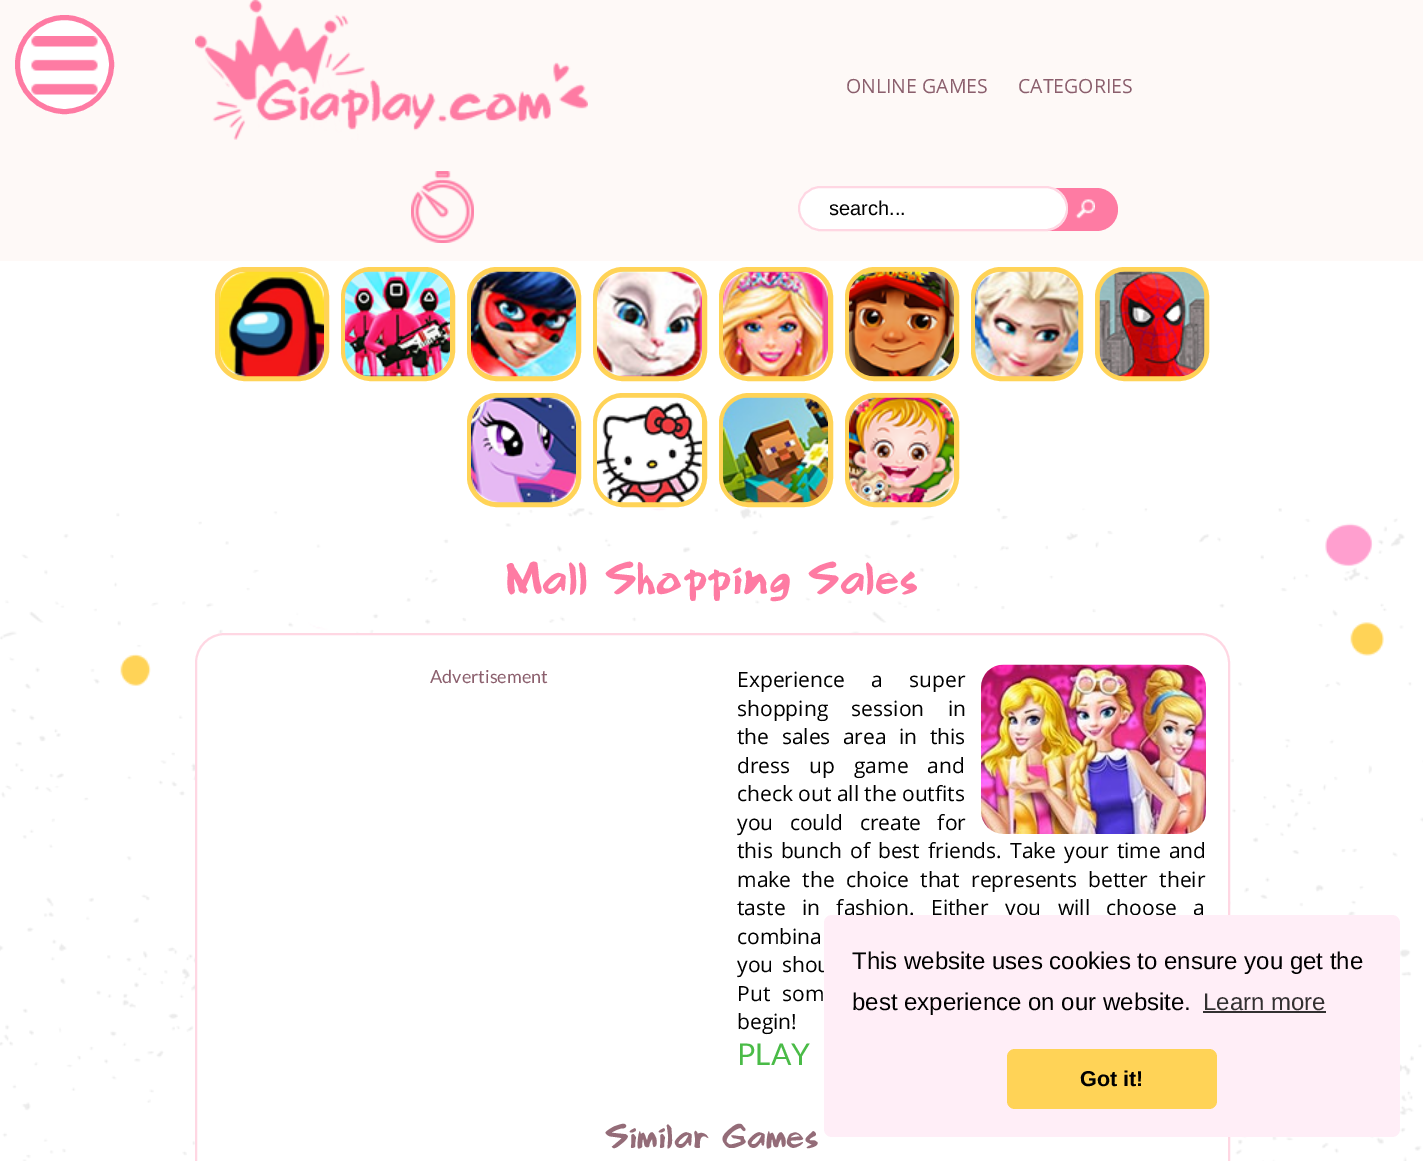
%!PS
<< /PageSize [1423 1161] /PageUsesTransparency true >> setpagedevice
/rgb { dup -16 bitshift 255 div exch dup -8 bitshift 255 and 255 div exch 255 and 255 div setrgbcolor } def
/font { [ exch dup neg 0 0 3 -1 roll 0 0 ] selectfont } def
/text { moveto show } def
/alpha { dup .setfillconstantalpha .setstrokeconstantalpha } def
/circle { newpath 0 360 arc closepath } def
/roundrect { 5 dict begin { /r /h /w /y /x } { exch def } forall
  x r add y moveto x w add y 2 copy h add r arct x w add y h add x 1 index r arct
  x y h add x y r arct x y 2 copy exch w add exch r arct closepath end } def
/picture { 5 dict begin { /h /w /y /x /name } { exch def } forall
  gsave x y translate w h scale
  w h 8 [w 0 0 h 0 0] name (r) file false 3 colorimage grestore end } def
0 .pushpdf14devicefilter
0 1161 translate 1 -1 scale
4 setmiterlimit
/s1 { /OpenSans-Regular 19.5 font 16#8B5F6D rgb } def
/s2 { /LiberationSans-Regular 20 font 16#000000 rgb } def
/s3 { /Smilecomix-Regular 36 font 16#FE7BA3 rgb } def
/s4 { /Lato-Regular 18 font 16#8B5F6D rgb } def
/s5 { /OpenSans-Regular 21 font 16#000000 rgb } def
/s6 { /Lato-Regular 30 font 16#4ABB47 rgb } def
/s7 { /Smilecomix-Regular 27 font 16#946C78 rgb } def
/s8 { /LiberationSans-Regular 24 font 16#000000 rgb } def
/s9 { /LiberationSans-Regular 24 font 16#333031 rgb } def
/s10 { /LiberationSans-Bold 21.5 font 16#000000 rgb } def
16#FFFFFF rgb
0 0 1423 1161 rectfill
16#FEF9F7 rgb
0 0 1423 261 rectfill
16#FFFFFF rgb
64.5 64.5 49.5 circle fill
(pic1.raw) 31 36 67 59 picture
16#FE7BA3 rgb
5 setlinewidth
64.5 64.5 47 circle stroke
(pic2.raw) 195 0 393 140 picture
s1
(ONLINE GAMES) 846 93 text
(CATEGORIES) 1018 93 text
(pic3.raw) 411 171 63 72 picture
16#FE7BA3 rgb
1038 188 moveto 1096.5 188 lineto 1108.5 188 1118 197.5 1118 209.5 curveto 1118 221.5 1108.5 231 1096.5 231 curveto 1038 231 lineto closepath fill
16#FFFFFF rgb
798 186 270 45 22.5 roundrect fill
0.3 alpha
16#FE7BA3 rgb
2 setlinewidth
799 187 268 43 21.5 roundrect stroke
gsave
830 198 207 23 rectclip
1 alpha
s2
(search...) 829 215 text
grestore
1 alpha
(pic4.raw) 1075 199 20 20 picture
16#FFD357 rgb
5 setlinewidth
217.5 269.5 109 109 27.5 roundrect stroke
(pic5.raw) 219 271 105 106 picture
343.5 269.5 109 109 27.5 roundrect stroke
(pic6.raw) 345 271 105 106 picture
469.5 269.5 109 109 27.5 roundrect stroke
(pic7.raw) 471 271 105 106 picture
595.5 269.5 109 109 27.5 roundrect stroke
(pic8.raw) 597 271 105 106 picture
721.5 269.5 109 109 27.5 roundrect stroke
(pic9.raw) 723 271 105 106 picture
847.5 269.5 109 109 27.5 roundrect stroke
(pic10.raw) 849 271 105 106 picture
973.5 269.5 107 109 27.5 roundrect stroke
(pic11.raw) 975 271 104 106 picture
1097.5 269.5 109 109 27.5 roundrect stroke
(pic12.raw) 1099 271 106 106 picture
469.5 395.5 109 109 27.5 roundrect stroke
(pic13.raw) 471 397 105 106 picture
595.5 395.5 109 109 27.5 roundrect stroke
(pic14.raw) 597 397 105 106 picture
721.5 395.5 109 109 27.5 roundrect stroke
(pic15.raw) 723 397 105 106 picture
847.5 395.5 109 109 27.5 roundrect stroke
(pic16.raw) 849 397 105 106 picture
(pic17.raw) 0 508 1423 653 picture
s3
(Mall Shopping Sales) 506 594 text
16#FFFFFF rgb
196 634 1033 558 29 roundrect gsave fill grestore
16#FFD7E3 rgb
2 setlinewidth
stroke
s4
(Advertisement) 430 683 text
/OpenSans-Regular 21 font
16#000000 rgb
737 687 moveto 21 0 32 (Experience a super) widthshow
(pic18.raw) 981 664 225 170 picture
737 716 moveto 18 0 32 (shopping session in) widthshow
737 744 moveto 7 0 32 (the sales area in this) widthshow
737 773 moveto 13.5 0 32 (dress up game and) widthshow
(check out all the outfits) 737 801 text
737 830 moveto 11 0 32 (you could create for) widthshow
737 858 moveto 2.5 0 32 (this bunch of best friends. Take your time and) widthshow
737 887 moveto 6 0 32 (make the choice that represents better their) widthshow
737 915 moveto 11 0 32 (taste in fashion. Either you will choose a) widthshow
737 944 moveto 1 0 32 (combina) widthshow
737 972 moveto 3 0 32 (you shou) widthshow
737 1001 moveto 7 0 32 (Put som) widthshow
(begin!) 737 1029 text
s6
(PLAY) 737 1065 text
s7
(Similar Games) 605 1148 text
16#FFEEF7 rgb
824 915 576 222 8 roundrect fill
s8
(This website uses cookies to ensure you get the) 852 969 text
(best experience on our website.) 852 1010 text
s9
(Learn more) 1203 1010 text
1203 1011 123 2 rectfill
16#FFD357 rgb
1007 1049 210 60 8 roundrect fill
s10
(Got it!) 1080 1086 text
.poppdf14devicefilter showpage
